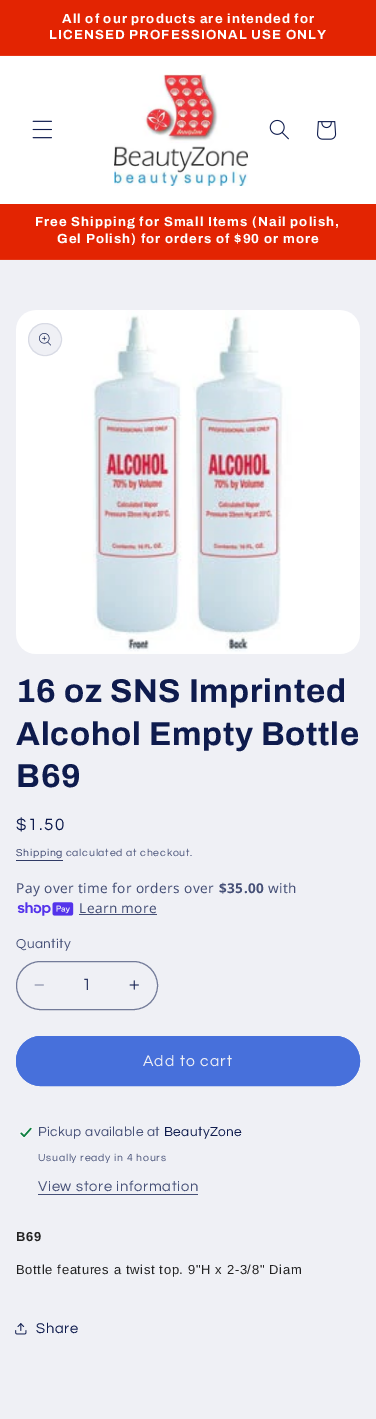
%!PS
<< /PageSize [376 1419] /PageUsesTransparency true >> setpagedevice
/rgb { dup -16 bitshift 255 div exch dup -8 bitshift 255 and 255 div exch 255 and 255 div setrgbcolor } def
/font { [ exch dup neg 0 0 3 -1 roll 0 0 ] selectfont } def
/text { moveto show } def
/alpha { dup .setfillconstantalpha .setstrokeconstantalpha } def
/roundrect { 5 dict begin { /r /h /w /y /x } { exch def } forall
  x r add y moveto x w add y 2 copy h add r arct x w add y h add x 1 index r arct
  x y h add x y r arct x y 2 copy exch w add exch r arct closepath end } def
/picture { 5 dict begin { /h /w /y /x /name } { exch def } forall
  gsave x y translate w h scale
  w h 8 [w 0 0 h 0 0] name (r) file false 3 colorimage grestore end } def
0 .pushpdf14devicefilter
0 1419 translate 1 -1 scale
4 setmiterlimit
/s1 { /Questrial-Regular 17 font 16#303B66 rgb } def
16#EFF0F5 rgb
0 0 376 1419 rectfill
16#E32402 rgb
0 0 376 55 rectfill
16#E53616 rgb
0 55 376 1 rectfill
/Archivo-Bold 13.2 font
16#FFFFFF rgb
62 23 moveto 1.05 0 (All of our products are intended for) ashow
49 39 moveto 1.05 0 (LICENSED PROFESSIONAL USE ONLY) ashow
0 56 376 148 rectfill
(pic1.raw) 32 120 20 19 picture
(pic2.raw) 114 74 134 112 picture
(pic3.raw) 269 119 20 21 picture
(pic4.raw) 317 121 20 19 picture
16#E32402 rgb
0 204 376 55 rectfill
16#E53616 rgb
0 259 376 1 rectfill
16#FFFFFF rgb
35 226 moveto 1.05 0 (Free Shipping for Small Items \(Nail polish,) ashow
57 243 moveto 1.05 0 (Gel Polish\) for orders of $90 or more) ashow
(pic5.raw) 16 310 344 344 picture
16#EFF0F5 rgb
28 323 34 33 16.5 roundrect fill
0.1 alpha
16#0E1B4D rgb
28.5 323.5 33 32 16 roundrect stroke
1 alpha
(pic6.raw) 39 333 12 13 picture
/Archivo-Bold 33 font
16 702 moveto 0.7 0 (16 oz SNS Imprinted) ashow
16 745 moveto 0.7 0 (Alcohol Empty Bottle) ashow
16 787 moveto 0.7 0 (B69) ashow
/Questrial-Regular 17 font
16 830 moveto 1.5 0 ($1.50) ashow
/Questrial-Regular 10.5 font
16#303B66 rgb
16 856 moveto 0.75 0 (Shipping) ashow
16 860 47 1 rectfill
16#465077 rgb
66 856 moveto 0.75 0 (calculated at checkout.) ashow
/NotoSans-Regular 13.6 font
16 893 moveto 0.4 0 (Pay over time for orders over) ashow
/NotoSans-Bold 13.6 font
219 893 moveto 0.4 0 ($35.00) ashow
/NotoSans-Regular 13.6 font
268 893 moveto 0.4 0 (with) ashow
(pic7.raw) 17 902 57 14 picture
79 913 moveto 0.4 0 (Learn more) ashow
79 914 78 1 rectfill
/Questrial-Regular 13.6 font
16 948 moveto 0.4 0 (Quantity) ashow
(pic8.raw) 34 984 10 2 picture
(pic9.raw) 129 980 10 10 picture
16#737B99 rgb
16.5 961.5 141 48 24 roundrect stroke
s1
(1) 82 990 text
16#4770DB rgb
16 1036 344 50 25 roundrect fill
16.5 1036.5 343 49 24.5 roundrect stroke
/Questrial-Regular 15.75 font
16#EFF0F5 rgb
143 1066 moveto 1.05 0 (Add to cart) ashow
(pic10.raw) 19 1127 14 11 picture
/Questrial-Regular 13.6 font
16#465077 rgb
38 1136 moveto 0.4 0 (Pickup available at) ashow
16#0E1B4D rgb
164 1136 moveto 0.4 0 (BeautyZone) ashow
/Questrial-Regular 10.5 font
16#465077 rgb
38 1161 moveto 0.75 0 (Usually ready in 4 hours) ashow
/Questrial-Regular 14.75 font
38 1191 moveto 0.65 0 (View store information) ashow
38 1194 160 1 rectfill
/LiberationSans-Bold 13 font
16#222222 rgb
16 1241 moveto 0.65 0 (B69) ashow
/LiberationSans-Regular 13 font
16 1274 moveto 0.65 0 (Bottle features a twist top. 9"H x 2-3/8" Diam) ashow
(pic11.raw) 15 1323 12 12 picture
/Questrial-Regular 14.75 font
16#0E1B4D rgb
36 1333 moveto 0.65 0 (Share) ashow
.poppdf14devicefilter showpage
